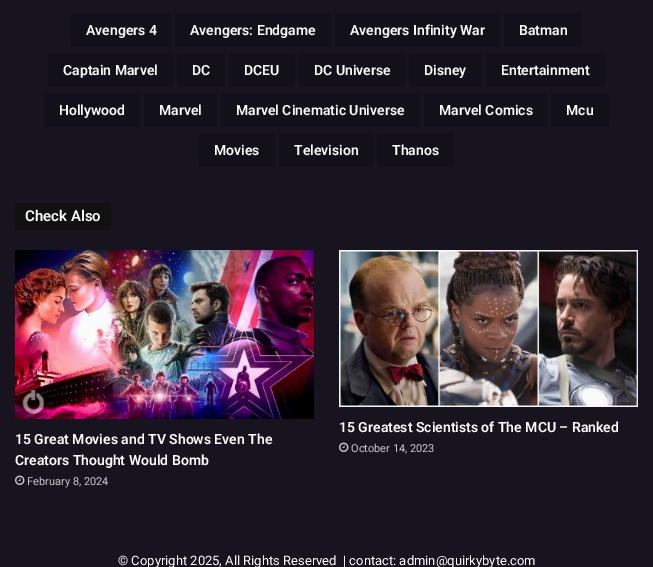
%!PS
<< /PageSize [653 567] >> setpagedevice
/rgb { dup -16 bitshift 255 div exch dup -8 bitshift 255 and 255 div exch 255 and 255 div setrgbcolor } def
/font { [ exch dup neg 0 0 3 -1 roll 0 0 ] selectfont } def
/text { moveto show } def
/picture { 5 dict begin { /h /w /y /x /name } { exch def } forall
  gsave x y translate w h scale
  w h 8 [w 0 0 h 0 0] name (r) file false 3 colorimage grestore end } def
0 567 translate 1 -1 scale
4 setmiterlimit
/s1 { /Roboto-SemiBold 14 font 16#FDFDFD rgb } def
/s2 { /Roboto-SemiBold 15 font 16#FDFDFD rgb } def
/s3 { /Roboto-Regular 11 font 16#CACACA rgb } def
/s4 { /Roboto-Regular 13 font 16#FDFDFD rgb } def
16#17141F rgb
0 0 653 567 rectfill
16#121019 rgb
71 13 100 34 rectfill
s1
(Avengers 4) 86 35 text
16#121019 rgb
175 13 156 34 rectfill
s1
(Avengers: Endgame) 190 35 text
16#121019 rgb
335 13 165 34 rectfill
s1
(Avengers Infinity War) 350 35 text
16#121019 rgb
504 13 78 34 rectfill
s1
(Batman) 519 35 text
16#121019 rgb
48 53 125 34 rectfill
s1
(Captain Marvel) 63 75 text
16#121019 rgb
177 53 48 34 rectfill
s1
(DC) 192 75 text
16#121019 rgb
229 53 66 34 rectfill
s1
(DCEU) 244 75 text
16#121019 rgb
299 53 106 34 rectfill
s1
(DC Universe) 314 75 text
16#121019 rgb
409 53 73 34 rectfill
s1
(Disney) 424 75 text
16#121019 rgb
486 53 119 34 rectfill
s1
(Entertainment) 501 75 text
16#121019 rgb
44 93 96 34 rectfill
s1
(Hollywood) 59 115 text
16#121019 rgb
144 93 73 34 rectfill
s1
(Marvel) 159 115 text
16#121019 rgb
221 93 199 34 rectfill
s1
(Marvel Cinematic Universe) 236 115 text
16#121019 rgb
424 93 123 34 rectfill
s1
(Marvel Comics) 439 115 text
16#121019 rgb
551 93 58 34 rectfill
s1
(Mcu) 566 115 text
16#121019 rgb
199 133 76 34 rectfill
s1
(Movies) 214 155 text
16#121019 rgb
279 133 94 34 rectfill
s1
(Television) 294 155 text
16#121019 rgb
377 133 77 34 rectfill
s1
(Thanos) 392 155 text
16#111111 rgb
15 203 96 27 rectfill
s2
(Check Also) 25 221 text
(pic1.raw) 15 250 299 169 picture
s1
(15 Great Movies and TV Shows Even The) 15 444 text
(Creators Thought Would Bomb) 15 465 text
(pic2.raw) 15 475 10 10 picture
s3
(February 8, 2024) 27 485 text
(pic3.raw) 339 250 299 157 picture
s1
(15 Greatest Scientists of The MCU – Ranked) 339 432 text
(pic2.raw) 339 442 10 10 picture
s3
(October 14, 2023) 351 452 text
s4
(© Copyright 2025, All Rights Reserved  | contact: admin@quirkybyte.com) 118 565 text
showpage
